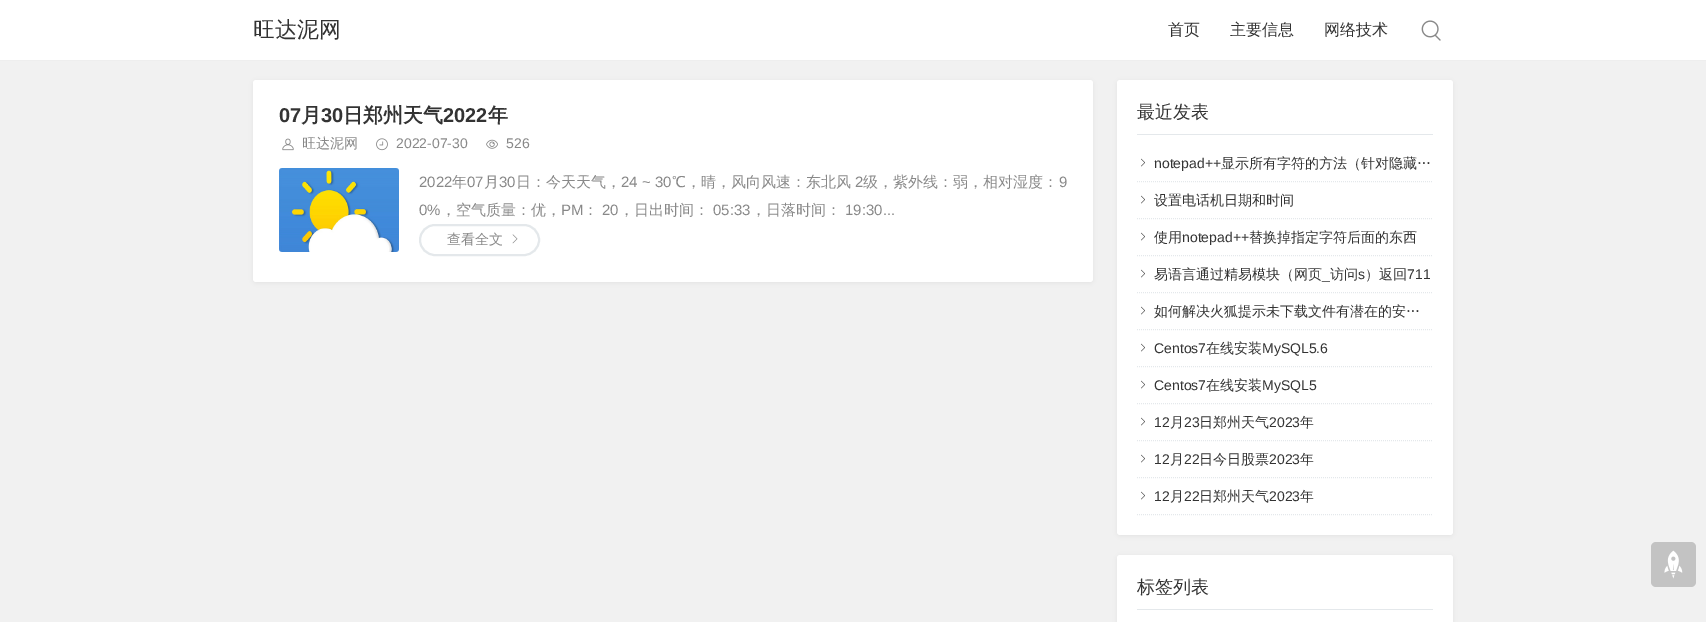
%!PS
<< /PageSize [1706 622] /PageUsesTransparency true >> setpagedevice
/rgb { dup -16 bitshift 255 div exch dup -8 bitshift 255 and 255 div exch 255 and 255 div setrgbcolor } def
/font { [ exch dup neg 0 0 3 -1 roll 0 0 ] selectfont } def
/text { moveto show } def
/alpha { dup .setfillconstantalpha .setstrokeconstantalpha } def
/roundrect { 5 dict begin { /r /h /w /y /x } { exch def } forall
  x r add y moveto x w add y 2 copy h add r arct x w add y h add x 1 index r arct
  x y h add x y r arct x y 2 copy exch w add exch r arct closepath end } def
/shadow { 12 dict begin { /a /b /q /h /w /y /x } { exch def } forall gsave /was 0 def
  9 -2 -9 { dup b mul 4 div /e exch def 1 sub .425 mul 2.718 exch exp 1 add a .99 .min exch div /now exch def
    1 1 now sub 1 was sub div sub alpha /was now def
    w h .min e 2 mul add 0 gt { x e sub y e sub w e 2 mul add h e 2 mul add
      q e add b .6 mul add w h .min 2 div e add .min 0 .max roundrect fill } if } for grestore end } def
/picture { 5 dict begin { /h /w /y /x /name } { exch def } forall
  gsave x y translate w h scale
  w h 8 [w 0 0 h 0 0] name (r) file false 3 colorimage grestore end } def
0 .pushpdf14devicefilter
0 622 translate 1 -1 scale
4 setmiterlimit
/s1 { /WenQuanYiZenHei-Medium 22 font 16#333333 rgb } def
/s2 { /WenQuanYiZenHei-Medium 16 font 16#333333 rgb } def
/s3 { /LiberationSans-Bold 20 font 16#333333 rgb } def
/s4 { /WenQuanYiZenHei-Bold 20 font 16#333333 rgb } def
/s5 { /WenQuanYiZenHei-Medium 14 font 16#888888 rgb } def
/s6 { /LiberationSans-Regular 14 font 16#888888 rgb } def
/s7 { /LiberationSans-Regular 15 font 16#888888 rgb } def
/s8 { /WenQuanYiZenHei-Medium 15 font 16#888888 rgb } def
/s9 { /WenQuanYiZenHei-Medium 18 font 16#333333 rgb } def
/s10 { /LiberationSans-Regular 14 font 16#333333 rgb } def
/s11 { /WenQuanYiZenHei-Medium 14 font 16#333333 rgb } def
16#F1F1F1 rgb
0 0 1706 622 rectfill
16#FFFFFF rgb
0 0 1706 60 rectfill
16#EEEEEE rgb
0 60 1706 1 rectfill
s1
(旺达泥网) 253 37 text
s2
(首页) 1168 35 text
(主要信息) 1230 35 text
(网络技术) 1324 35 text
(pic1.raw) 1421 20 20 21 picture
16#000000 rgb
253 81 840 202 3 2.5 0.05 shadow
16#FFFFFF rgb
253 80 840 202 3 roundrect fill
s3
(07) 279 122 text
s4
(月) 301 122 text
s3
(30) 321 122 text
s4
(日郑州天气) 343 122 text
s3
(2022) 443 122 text
s4
(年) 488 122 text
(pic2.raw) 282 138 12 13 picture
s5
(旺达泥网) 302 148 text
(pic3.raw) 376 138 12 13 picture
s6
(2022-07-30) 396 148 text
(pic4.raw) 486 139 12 10 picture
(526) 506 148 text
(pic5.raw) 279 168 120 84 picture
s7
(2022) 419 187 text
s8
(年) 452 187 text
s7
(07) 467 187 text
s8
(月) 484 187 text
s7
(30) 499 187 text
s8
(日：今天天气，) 516 187 text
s7
(24 ~ 30) 621 187 text
s8
(℃，晴，风向风速：东北风) 672 187 text
s7
(2) 855 187 text
s8
(级，紫外线：弱，相对湿度：) 863 187 text
s7
(9) 1059 187 text
(0%) 419 215 text
s8
(，空气质量：优，) 441 215 text
s7
(PM) 561 215 text
s8
(：) 583 215 text
s7
(20) 602 215 text
s8
(，日出时间：) 619 215 text
s7
(05:33) 713 215 text
s8
(，日落时间：) 751 215 text
s7
(19:30...) 845 215 text
16#E4E8EB rgb
2 setlinewidth
420 225 119 30 15 roundrect stroke
s5
(查看全文) 447 244 text
(pic6.raw) 512 234 6 10 picture
16#000000 rgb
1117 81 336 455 3 2.5 0.05 shadow
16#FFFFFF rgb
1117 80 336 455 3 roundrect fill
16#E4E8EB rgb
1137 134 296 1 rectfill
s9
(最近发表) 1137 118 text
16#E4E8EB rgb
1 setlinewidth
[1 1] 0 setdash
1137 181.5 moveto 1433 181.5 lineto stroke
(pic7.raw) 1141 158 4 9 picture
s10
(notepad++) 1154 168 text
s11
(显示所有字符的方法（针对隐藏…) 1221 168 text
16#E4E8EB rgb
1137 218.5 moveto 1433 218.5 lineto stroke
(pic7.raw) 1141 195 4 9 picture
s11
(设置电话机日期和时间) 1154 205 text
16#E4E8EB rgb
1137 255.5 moveto 1433 255.5 lineto stroke
(pic7.raw) 1141 232 4 9 picture
s11
(使用) 1154 242 text
s10
(notepad++) 1182 242 text
s11
(替换掉指定字符后面的东西) 1249 242 text
16#E4E8EB rgb
1137 292.5 moveto 1433 292.5 lineto stroke
(pic7.raw) 1141 269 4 9 picture
s11
(易语言通过精易模块（网页) 1154 279 text
s10
(_) 1322 279 text
s11
(访问) 1330 279 text
s10
(s) 1358 279 text
s11
(）返回) 1365 279 text
s10
(711) 1407 279 text
16#E4E8EB rgb
1137 329.5 moveto 1433 329.5 lineto stroke
(pic7.raw) 1141 306 4 9 picture
s11
(如何解决火狐提示未下载文件有潜在的安…) 1154 316 text
16#E4E8EB rgb
1137 366.5 moveto 1433 366.5 lineto stroke
(pic7.raw) 1141 343 4 9 picture
s10
(Centos7) 1154 353 text
s11
(在线安装) 1206 353 text
s10
(MySQL5.6) 1262 353 text
16#E4E8EB rgb
1137 403.5 moveto 1433 403.5 lineto stroke
(pic7.raw) 1141 380 4 9 picture
s10
(Centos7) 1154 390 text
s11
(在线安装) 1206 390 text
s10
(MySQL5) 1262 390 text
16#E4E8EB rgb
1137 440.5 moveto 1433 440.5 lineto stroke
(pic7.raw) 1141 417 4 9 picture
s10
(12) 1154 427 text
s11
(月) 1170 427 text
s10
(23) 1184 427 text
s11
(日郑州天气) 1199 427 text
s10
(2023) 1269 427 text
s11
(年) 1300 427 text
16#E4E8EB rgb
1137 477.5 moveto 1433 477.5 lineto stroke
(pic7.raw) 1141 454 4 9 picture
s10
(12) 1154 464 text
s11
(月) 1170 464 text
s10
(22) 1184 464 text
s11
(日今日股票) 1199 464 text
s10
(2023) 1269 464 text
s11
(年) 1300 464 text
16#E4E8EB rgb
1137 514.5 moveto 1433 514.5 lineto stroke
(pic7.raw) 1141 491 4 9 picture
s10
(12) 1154 501 text
s11
(月) 1170 501 text
s10
(22) 1184 501 text
s11
(日郑州天气) 1199 501 text
s10
(2023) 1269 501 text
s11
(年) 1300 501 text
16#000000 rgb
1117 556 336 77 3 2.5 0.05 shadow
16#FFFFFF rgb
1117 555 336 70 3 roundrect fill
16#E4E8EB rgb
1137 609 296 1 rectfill
s9
(标签列表) 1137 593 text
16#C3C3C3 rgb
1651 542 45 45 5 roundrect fill
(pic8.raw) 1664 550 19 29 picture
.poppdf14devicefilter showpage
